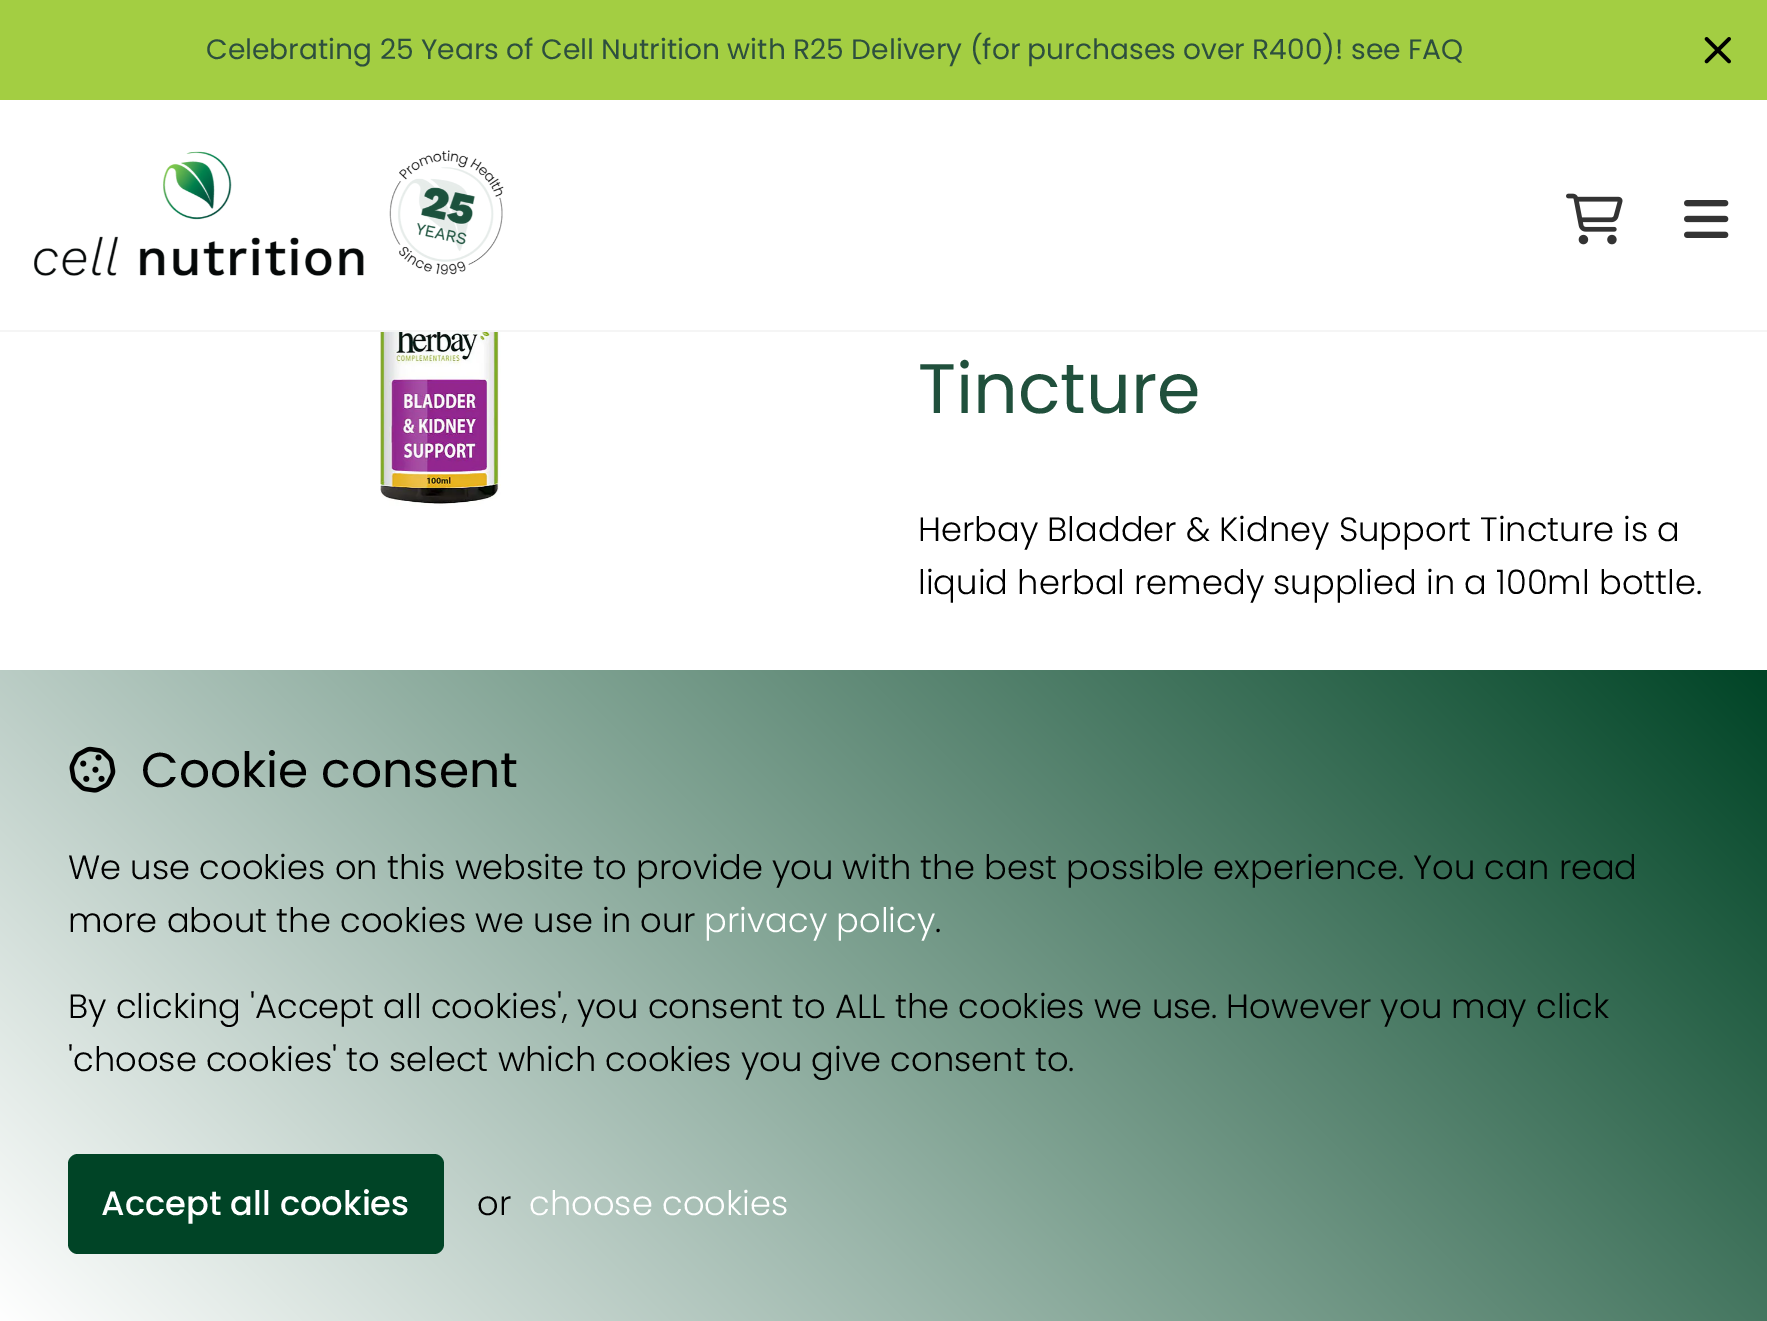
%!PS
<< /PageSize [1767 1321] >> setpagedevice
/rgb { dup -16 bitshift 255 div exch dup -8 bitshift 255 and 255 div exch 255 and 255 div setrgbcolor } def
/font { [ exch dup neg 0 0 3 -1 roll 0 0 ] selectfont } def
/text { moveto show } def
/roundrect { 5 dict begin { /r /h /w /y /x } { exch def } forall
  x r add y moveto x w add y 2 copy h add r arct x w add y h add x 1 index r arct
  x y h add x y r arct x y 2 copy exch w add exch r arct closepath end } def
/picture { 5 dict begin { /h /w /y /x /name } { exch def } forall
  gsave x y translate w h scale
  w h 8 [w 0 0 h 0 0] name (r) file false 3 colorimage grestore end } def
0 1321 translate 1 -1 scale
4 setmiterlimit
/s1 { /Poppins-Regular 28.1 font 16#2D4F3E rgb } def
/s2 { /Poppins-Regular 70 font 16#20503C rgb } def
/s3 { /Poppins-Regular 48.75 font 16#000000 rgb } def
/s4 { /Poppins-Light 33.75 font 16#000000 rgb } def
/s5 { /Poppins-Light 33.75 font 16#FFFFFF rgb } def
/s6 { /Poppins-Medium 33.75 font 16#FFFFFF rgb } def
16#FFFFFF rgb
0 0 1767 1321 rectfill
16#F5F5F5 rgb
0 330 1767 2 rectfill
16#A3CE42 rgb
0 0 1767 100 rectfill
s1
(Celebrating 25 Years of Cell Nutrition with R25 Delivery \(for purchases over R400\)! see FAQ) 206 59 text
(pic1.raw) 1704 37 27 27 picture
(pic2.raw) 34 150 470 126 picture
(pic3.raw) 1566 193 57 52 picture
(pic4.raw) 1684 200 45 38 picture
(pic5.raw) 380 332 121 174 picture
s2
(Tincture) 918 413 text
/Poppins-Light 33.75 font
16#000000 rgb
918 541 moveto -0.1 0 32 (Herbay Bladder & Kidney Support Tincture is a) widthshow
918 594 moveto -0.1 0 32 (liquid herbal remedy supplied in a 100ml bottle.) widthshow
gsave 0 670 moveto 1767 670 lineto 1767 1321 lineto 0 1321 lineto closepath clip newpath
<< /ShadingType 2 /ColorSpace /DeviceRGB /Coords [1489 391 279 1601] /Extend [true true] /Function << /FunctionType 2 /Domain [0 1] /C0 [0 0.267 0.149] /C1 [1 1 1] /N 1 >> >> shfill grestore
(pic6.raw) 69 746 47 47 picture
s3
(Cookie consent) 141 787 text
s4
(We use cookies on this website to provide you with the best possible experience. You can read) 68 879 text
(more about the cookies we use in our) 68 932 text
s5
(privacy policy) 704 932 text
s4
(.) 935 932 text
(By clicking 'Accept all cookies', you consent to ALL the cookies we use. However you may click) 68 1018 text
68 1071 moveto -0.1 0 32 ('choose cookies' to select which cookies you give consent to.) widthshow
16#004426 rgb
68 1154 376 100 10 roundrect fill
s6
(Accept all cookies) 101 1215 text
s4
(or) 477 1215 text
s5
(choose cookies) 529 1215 text
showpage
